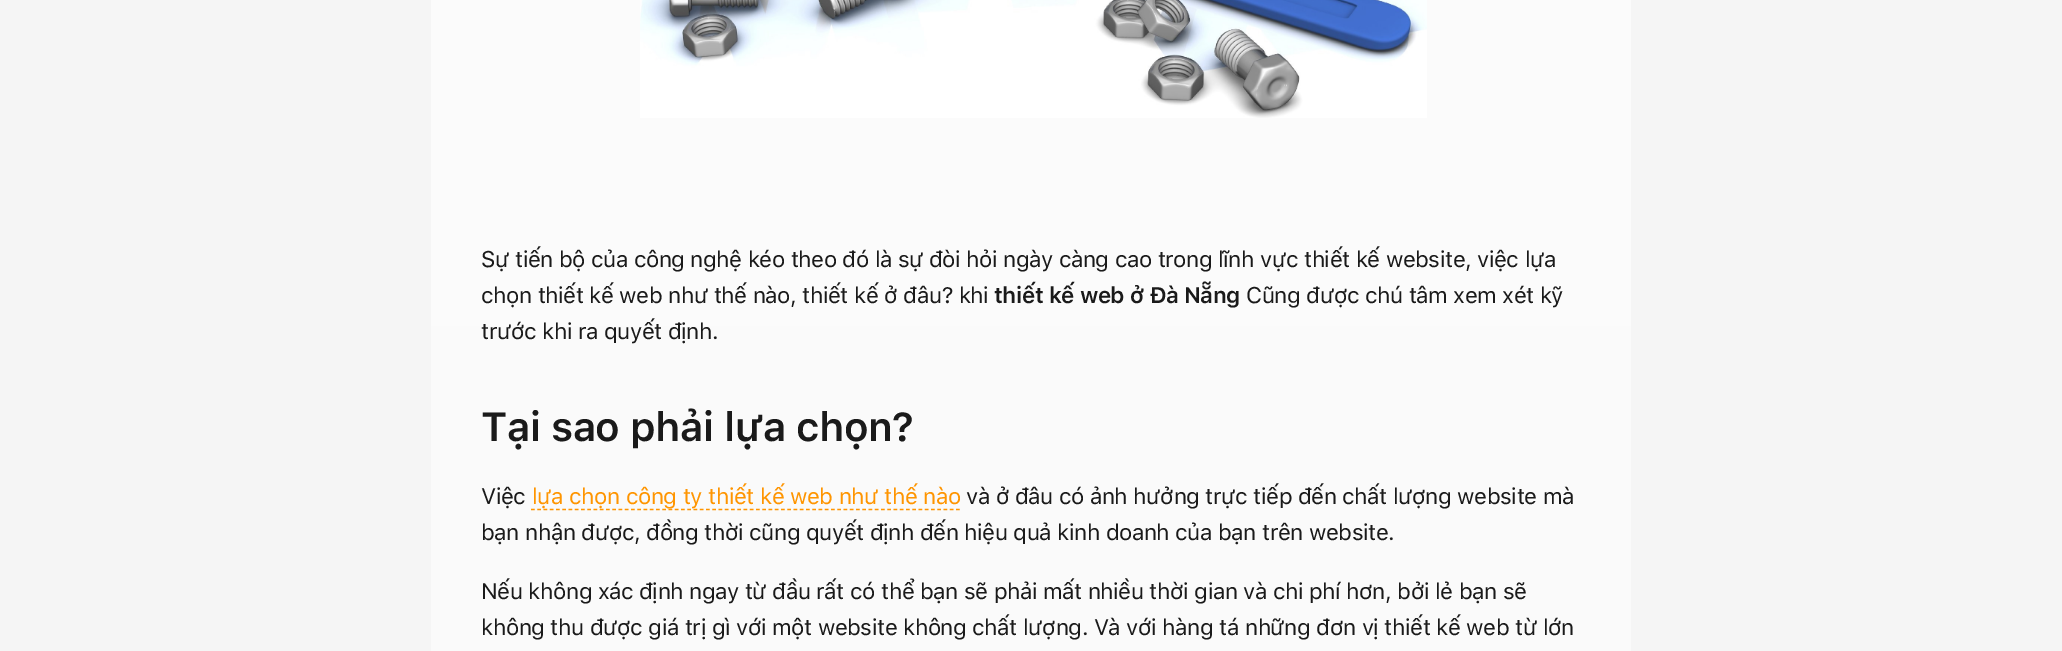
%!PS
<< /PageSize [2062 651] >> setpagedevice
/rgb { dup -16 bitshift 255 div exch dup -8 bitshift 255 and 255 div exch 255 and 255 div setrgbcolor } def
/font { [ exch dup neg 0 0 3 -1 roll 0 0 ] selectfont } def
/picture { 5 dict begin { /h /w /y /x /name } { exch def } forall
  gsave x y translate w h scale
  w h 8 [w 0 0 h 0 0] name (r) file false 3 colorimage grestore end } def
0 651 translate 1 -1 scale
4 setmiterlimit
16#F5F5F5 rgb
0 0 2062 651 rectfill
gsave 431 0 moveto 1631 0 lineto 1631 651 lineto 431 651 lineto closepath clip newpath
<< /ShadingType 2 /ColorSpace /DeviceRGB /Coords [1031 -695 1031 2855] /Extend [true true] /Function << /FunctionType 3 /Domain [0 1] /Functions [<< /FunctionType 2 /Domain [0 1] /C0 [1 1 1] /C1 [0.961 0.961 0.961] /N 1 >> << /FunctionType 2 /Domain [0 1] /C0 [0.961 0.961 0.961] /C1 [0.961 0.961 0.961] /N 1 >>] /Bounds [0.7] /Encode [0 1 0 1] >> >> shfill grestore
(pic1.raw) 640 0 787 118 picture
/SFProText-Regular 22.5 font
16#1A1A1A rgb
481 267 moveto -0.44 0 (Sự tiến bộ của công nghệ kéo theo đó là sự đòi hỏi ngày càng cao trong lĩnh vực thiết kế website, việc lựa) ashow
481 303 moveto -0.44 0 (chọn thiết kế web như thế nào, thiết kế ở đâu? khi) ashow
/SFProText-SemiBold 22.5 font
994 303 moveto -0.44 0 (thiết kế web ở Đà Nẵng) ashow
/SFProText-Regular 22.5 font
1246 303 moveto -0.44 0 (Cũng được chú tâm xem xét kỹ) ashow
481 339 moveto -0.44 0 (trước khi ra quyết định.) ashow
/SFProText-SemiBold 40.5 font
481 441 moveto -0.44 0 (Tại sao phải lựa chọn?) ashow
/SFProText-Regular 22.5 font
481 504 moveto -0.44 0 (Việc) ashow
16#FF9500 rgb
1.2 setlinewidth
[3.75 2.5] 0 setdash
531 509.5 moveto 960 509.5 lineto stroke
532 504 moveto -0.44 0 (lựa chọn công ty thiết kế web như thế nào) ashow
16#1A1A1A rgb
966 504 moveto -0.44 0 (và ở đâu có ảnh hưởng trực tiếp đến chất lượng website mà) ashow
481 540 moveto -0.44 0 (bạn nhận được, đồng thời cũng quyết định đến hiệu quả kinh doanh của bạn trên website.) ashow
481 599 moveto -0.44 0 (Nếu không xác định ngay từ đầu rất có thể bạn sẽ phải mất nhiều thời gian và chi phí hơn, bởi lẻ bạn sẽ) ashow
481 635 moveto -0.44 0 (không thu được giá trị gì với một website không chất lượng. Và với hàng tá những đơn vị thiết kế web từ lớn) ashow
showpage
